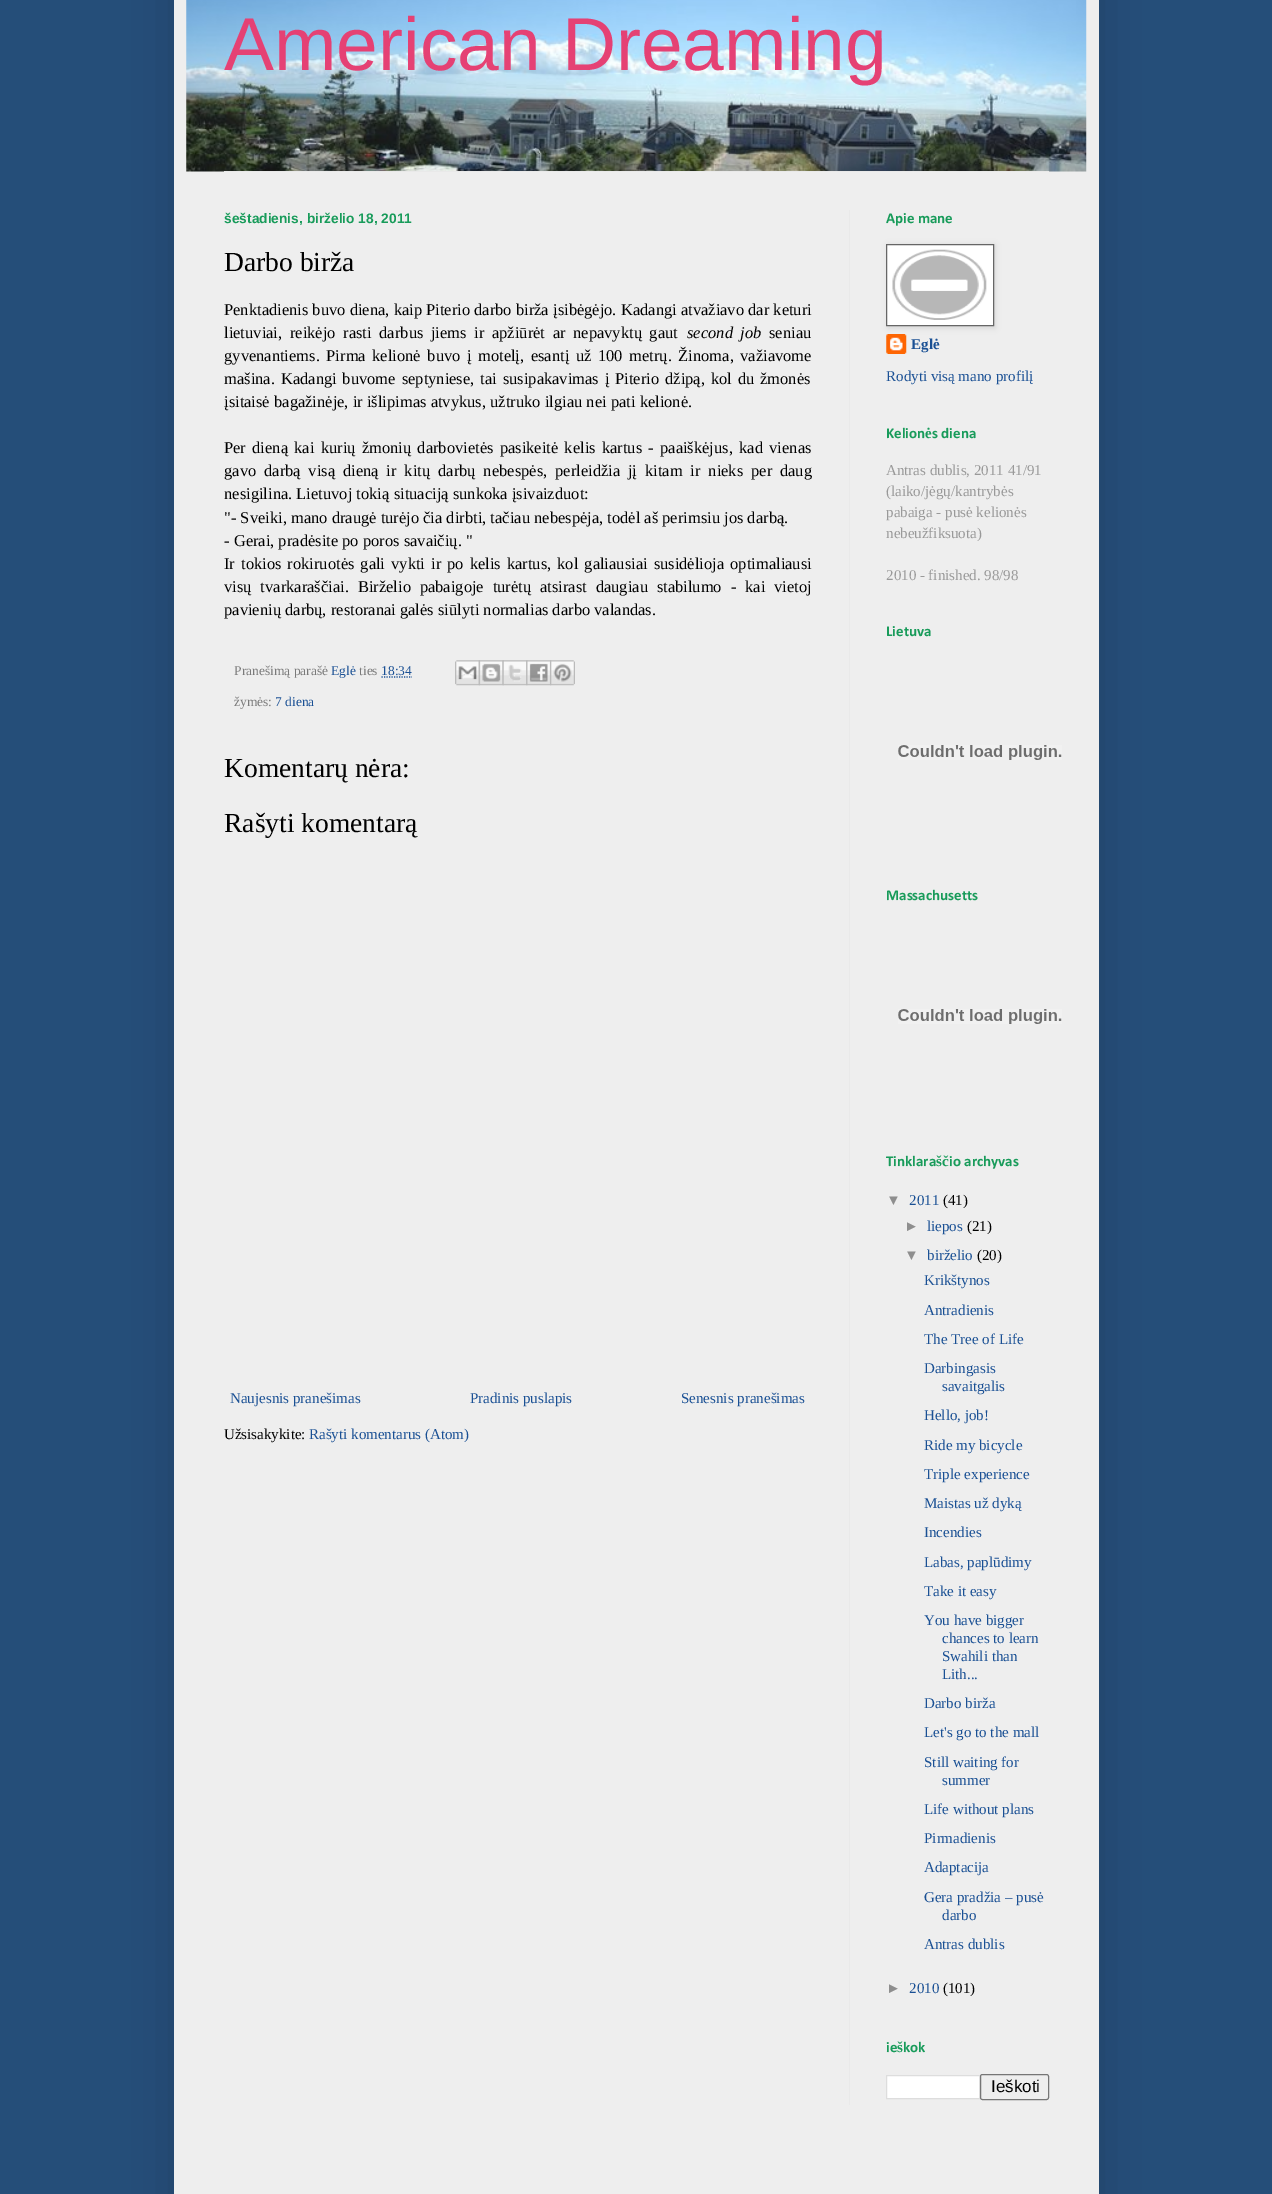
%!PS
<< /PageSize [1272 2194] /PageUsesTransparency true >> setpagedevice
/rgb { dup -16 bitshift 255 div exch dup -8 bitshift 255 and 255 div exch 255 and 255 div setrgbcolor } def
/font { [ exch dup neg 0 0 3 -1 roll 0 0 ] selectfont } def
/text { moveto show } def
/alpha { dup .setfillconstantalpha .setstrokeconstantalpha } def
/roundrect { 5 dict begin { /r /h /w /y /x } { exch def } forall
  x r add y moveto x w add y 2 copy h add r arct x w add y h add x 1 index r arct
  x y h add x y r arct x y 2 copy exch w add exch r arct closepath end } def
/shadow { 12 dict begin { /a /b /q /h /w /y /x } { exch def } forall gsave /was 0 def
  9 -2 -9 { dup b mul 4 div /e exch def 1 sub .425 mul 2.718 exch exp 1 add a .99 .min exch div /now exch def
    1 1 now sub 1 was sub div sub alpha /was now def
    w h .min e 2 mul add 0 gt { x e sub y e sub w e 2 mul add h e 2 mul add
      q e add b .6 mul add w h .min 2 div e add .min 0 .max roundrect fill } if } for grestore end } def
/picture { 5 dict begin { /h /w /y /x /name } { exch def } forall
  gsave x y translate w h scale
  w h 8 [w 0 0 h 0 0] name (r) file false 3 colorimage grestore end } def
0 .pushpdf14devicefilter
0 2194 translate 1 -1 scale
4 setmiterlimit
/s1 { /LiberationSans-Regular 75 font 16#E54174 rgb } def
/s2 { /LiberationSans-Bold 13.75 font 16#189B5A rgb } def
/s3 { /LiberationSerif-Regular 27.5 font 16#000000 rgb } def
/s4 { /LiberationSerif-Regular 16.5 font 16#000000 rgb } def
/s5 { /LiberationSerif-Regular 13.5 font 16#7A7A7A rgb } def
/s6 { /LiberationSerif-Regular 13.5 font 16#1A5094 rgb } def
/s7 { /LiberationSerif-Regular 15 font 16#1A5094 rgb } def
/s8 { /LiberationSerif-Regular 15 font 16#000000 rgb } def
/s9 { /Calibri-Bold 15 font 16#189B5A rgb } def
/s10 { /LiberationSerif-Bold 15 font 16#1A5094 rgb } def
/s11 { /LiberationSerif-Bold 15 font 16#189B5A rgb } def
/s12 { /LiberationSerif-Regular 15 font 16#999999 rgb } def
/s13 { /LiberationSans-Regular 15 font 16#8E8E8E rgb } def
/s14 { /LiberationSans-Regular 17 font 16#000000 rgb } def
16#254E79 rgb
0 0 1272 2194 rectfill
16#000000 rgb
174 -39 925 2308 0 25 0.15 shadow
16#EEEEEE rgb
174 0 925 2194 rectfill
(pic1.raw) 186 0 901 172 picture
s1
(American Dreaming) 224 70 text
16#E9E9E9 rgb
224 171 825 1 rectfill
849 210 1 1895 rectfill
s2
(šeštadienis, birželio 18, 2011) 224 223 text
s3
(Darbo birža) 224 271 text
s4
(Penktadienis buvo diena, kaip Piterio darbo birža įsibėgėjo. Kadangi atvažiavo dar keturi) 224 315 text
224 338 moveto 3.5 0 32 (lietuviai, reikėjo rasti darbus jiems ir apžiūrėt ar nepavyktų gaut) widthshow
/LiberationSerif-Italic 16.5 font
687 338 moveto 3.5 0 32 (second job) widthshow
s4
(seniau) 769 338 text
224 361 moveto 2.4 0 32 (gyvenantiems. Pirma kelionė buvo į motelį, esantį už 100 metrų. Žinoma, važiavome) widthshow
224 384 moveto 1.75 0 32 (mašina. Kadangi buvome septyniese, tai susipakavimas į Piterio džipą, kol du žmonės) widthshow
(įsitaisė bagažinėje, ir išlipimas atvykus, užtruko ilgiau nei pati kelionė.) 224 407 text
224 453 moveto 2.1 0 32 (Per dieną kai kurių žmonių darbovietės pasikeitė kelis kartus - paaiškėjus, kad vienas) widthshow
224 476 moveto 3.75 0 32 (gavo darbą visą dieną ir kitų darbų nebespės, perleidžia jį kitam ir nieks per daug) widthshow
(nesigilina. Lietuvoj tokią situaciją sunkoka įsivaizduot:) 224 499 text
("- Sveiki, mano draugė turėjo čia dirbti, tačiau nebespėja, todėl aš perimsiu jos darbą.) 224 523 text
(- Gerai, pradėsite po poros savaičių. ") 224 546 text
224 569 moveto 1.9 0 32 (Ir tokios rokiruotės gali vykti ir po kelis kartus, kol galiausiai susidėlioja optimaliausi) widthshow
224 592 moveto 4.75 0 32 (visų tvarkaraščiai. Birželio pabaigoje turėtų atsirast daugiau stabilumo - kai vietoj) widthshow
(pavienių darbų, restoranai galės siūlyti normalias darbo valandas.) 224 615 text
s5
(Pranešimą parašė) 234 675 text
s6
(Eglė) 331 675 text
s5
(ties) 359 675 text
s6
(18:34) 381 675 text
1.2 setlinewidth
[1.25 1.25] 0 setdash
381.5 677 moveto 412 677 lineto stroke
(pic2.raw) 455 660 25 26 picture
(pic3.raw) 478 660 26 26 picture
(pic4.raw) 502 660 26 26 picture
(pic5.raw) 526 660 26 26 picture
(pic6.raw) 550 660 25 26 picture
s5
(žymės:) 234 706 text
s6
(7 diena) 275 706 text
s3
(Komentarų nėra:) 224 777 text
(Rašyti komentarą) 224 832 text
s7
(Naujesnis pranešimas) 230 1403 text
(Pradinis puslapis) 470 1403 text
(Senesnis pranešimas) 681 1403 text
s8
(Užsisakykite:) 224 1439 text
s7
(Rašyti komentarus \(Atom\)) 309 1439 text
s9
(Apie mane) 886 223 text
(pic8.raw) 886 334 21 20 picture
16#000000 rgb
888 245 107 83 0 3 0.1 shadow
16#FFFFFF rgb
886.5 244.5 moveto 993.5 244.5 lineto 993.5 325.5 lineto 886.5 325.5 lineto closepath gsave fill grestore
16#666666 rgb
1 setlinewidth
[] 0 setdash
stroke
(pic7.raw) 892 249 95 71 picture
s10
(Eglė) 911 349 text
s7
(Rodyti visą mano profilį) 886 381 text
s9
(Kelion) 886 438 text
s11
(ė) 925 438 text
s9
(s diena) 932 438 text
s12
(Antras dublis, 2011 41/91) 886 475 text
(\(laiko/jėgų/kantrybės) 886 496 text
(pabaiga - pusė kelionės) 886 517 text
(nebeužfiksuota\)) 886 538 text
(2010 - finished. 98/98) 886 580 text
s9
(Lietuva) 886 636 text
(pic9.raw) 898 745 164 15 picture
(Massachusetts) 886 900 text
(pic9.raw) 898 1009 164 15 picture
(Tinklara) 886 1166 text
s11
(šč) 936 1166 text
s9
(io archyvas) 949 1166 text
s13
(▼) 886 1205 text
s7
(2011) 909 1205 text
s8
(\(41\)) 943 1205 text
s13
(►) 904 1231 text
s7
(liepos) 927 1231 text
s8
(\(21\)) 967 1231 text
s13
(▼) 904 1260 text
s7
(birželio) 927 1260 text
s8
(\(20\)) 977 1260 text
s7
(Krikštynos) 924 1285 text
(Antradienis) 924 1315 text
(The Tree of Life) 924 1344 text
(Darbingasis) 924 1373 text
(savaitgalis) 942 1391 text
(Hello, job!) 924 1420 text
(Ride my bicycle) 924 1450 text
(Triple experience) 924 1479 text
(Maistas už dyką) 924 1508 text
(Incendies) 924 1537 text
(Labas, paplūdimy) 924 1567 text
(Take it easy) 924 1596 text
(You have bigger) 924 1625 text
(chances to learn) 942 1643 text
(Swahili than) 942 1661 text
(Lith...) 942 1679 text
(Darbo birža) 924 1708 text
(Let's go to the mall) 924 1737 text
(Still waiting for) 924 1767 text
(summer) 942 1785 text
(Life without plans) 924 1814 text
(Pirmadienis) 924 1843 text
(Adaptacija) 924 1872 text
(Gera pradžia – pusė) 924 1902 text
(darbo) 942 1920 text
(Antras dublis) 924 1949 text
s13
(►) 886 1993 text
s7
(2010) 909 1993 text
s8
(\(101\)) 943 1993 text
s9
(ie) 886 2052 text
s11
(š) 897 2052 text
s9
(kok) 903 2052 text
16#FFFFFF rgb
886.5 2075.5 moveto 979.5 2075.5 lineto 979.5 2098.5 lineto 886.5 2098.5 lineto closepath gsave fill grestore
16#DDDDDD rgb
stroke
16#767676 rgb
980.5 2074.5 68 25 2 roundrect stroke
s14
(Ieškoti) 991 2092 text
.poppdf14devicefilter showpage
